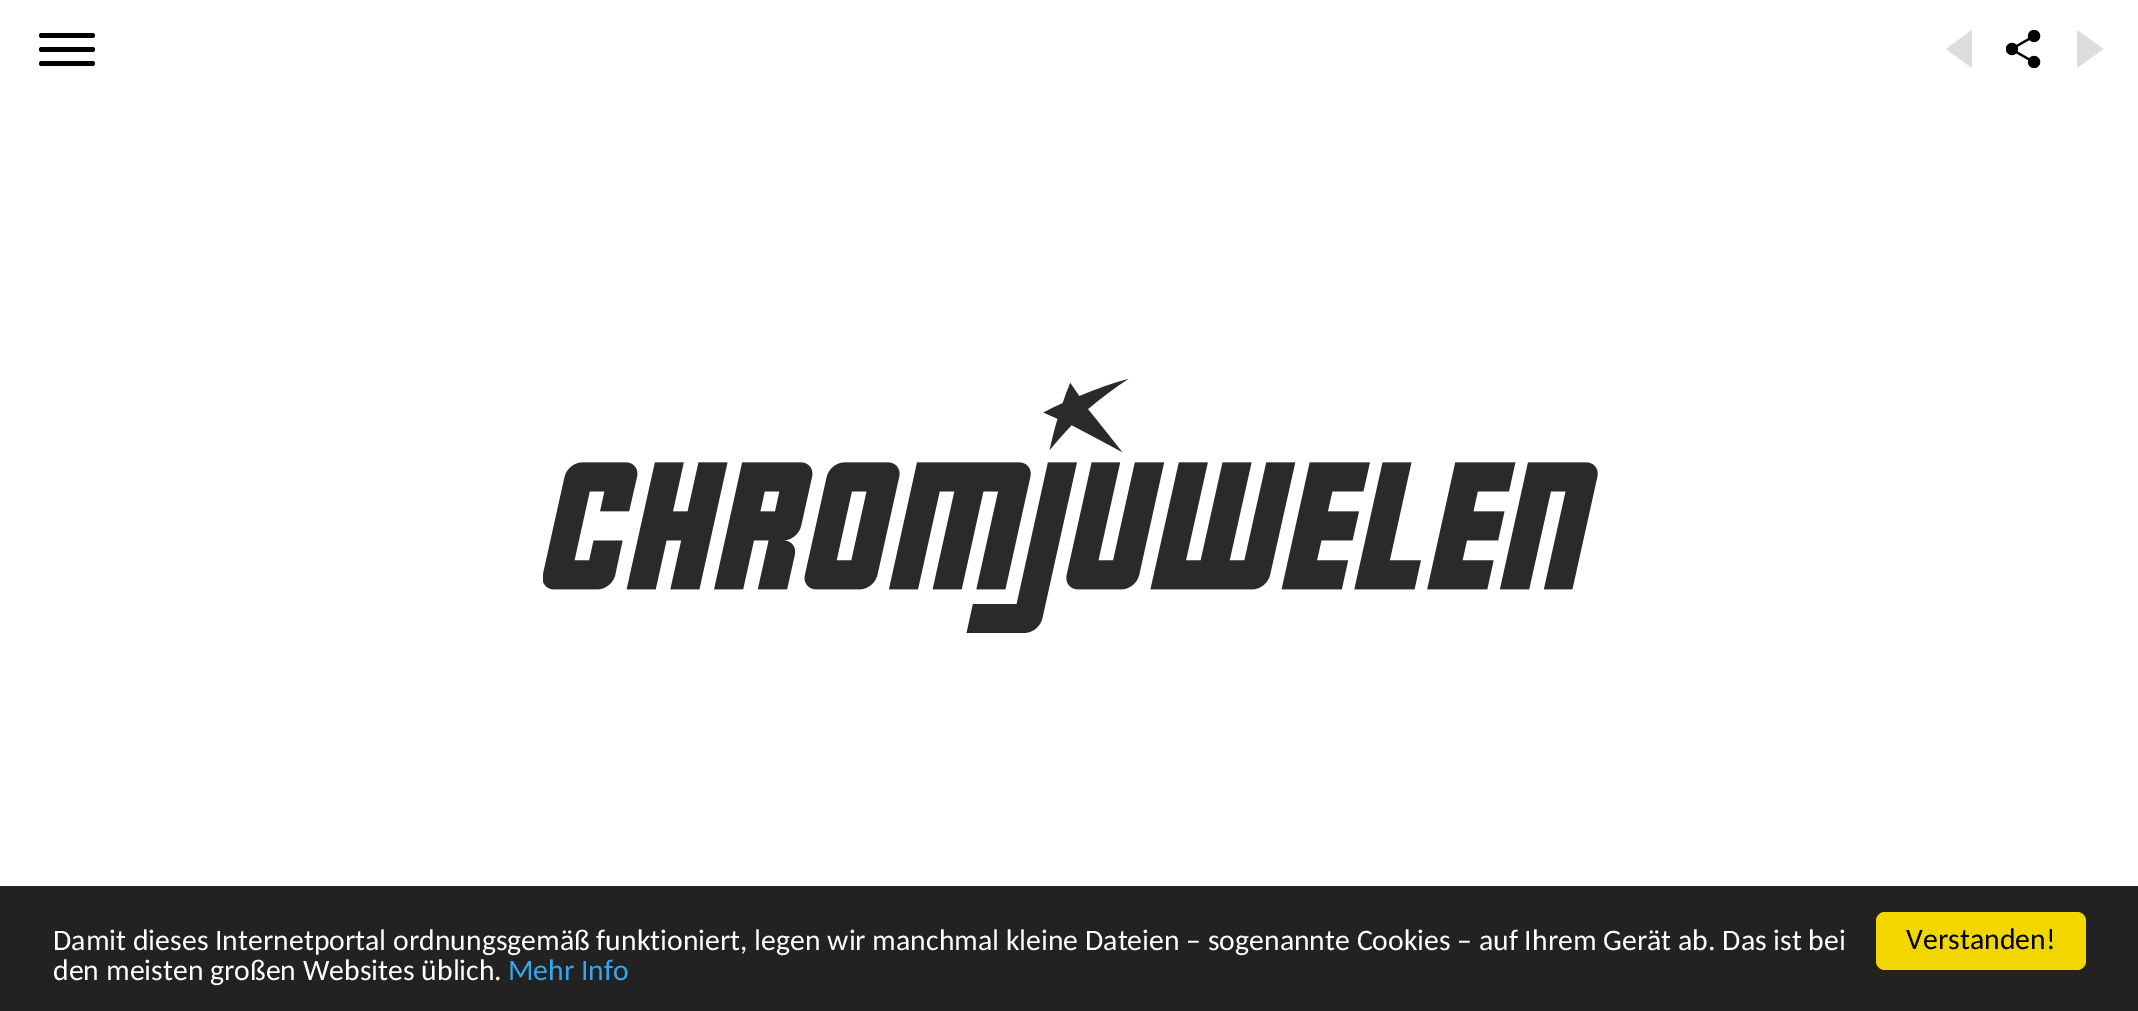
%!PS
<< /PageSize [2138 1011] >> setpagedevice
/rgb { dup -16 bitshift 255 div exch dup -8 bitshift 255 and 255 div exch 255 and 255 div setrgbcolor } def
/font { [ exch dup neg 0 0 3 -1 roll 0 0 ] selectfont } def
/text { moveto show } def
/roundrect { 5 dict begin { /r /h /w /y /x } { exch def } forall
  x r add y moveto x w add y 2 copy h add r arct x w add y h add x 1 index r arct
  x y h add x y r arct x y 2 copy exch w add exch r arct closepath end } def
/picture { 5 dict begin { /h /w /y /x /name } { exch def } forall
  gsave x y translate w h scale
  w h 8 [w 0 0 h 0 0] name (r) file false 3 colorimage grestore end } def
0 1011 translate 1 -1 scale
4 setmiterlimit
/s1 { /Carlito-Regular 29.75 font 16#FFFFFF rgb } def
/s2 { /Carlito-Regular 29.75 font 16#31A8F0 rgb } def
/s3 { /Carlito-Regular 29.75 font 16#000000 rgb } def
16#FFFFFF rgb
0 0 2138 1011 rectfill
16#DDDDDD rgb
1972 30 moveto 1972 68 lineto 1946 49 lineto closepath fill
2077 68 moveto 2077 30 lineto 2103.5 49 lineto closepath fill
16#000000 rgb
39 33 56 5 2.5 roundrect fill
39 47 56 5 2.5 roundrect fill
39 61 56 5 2.5 roundrect fill
(pic1.raw) 2006 30 35 38 picture
(pic2.raw) 543 378 1055 255 picture
16#222222 rgb
0 886 2138 125 rectfill
s1
(Damit dieses Internetportal ordnungsgemäß funktioniert, legen wir manchmal kleine Dateien – sogenannte Cookies – auf Ihrem Gerät ab. Das ist bei) 53 950 text
(den meisten großen Websites üblich.) 53 980 text
s2
(Mehr Info) 508 980 text
16#F1D600 rgb
1876 912 210 58 9 roundrect fill
s3
(Verstanden!) 1906 949 text
showpage
